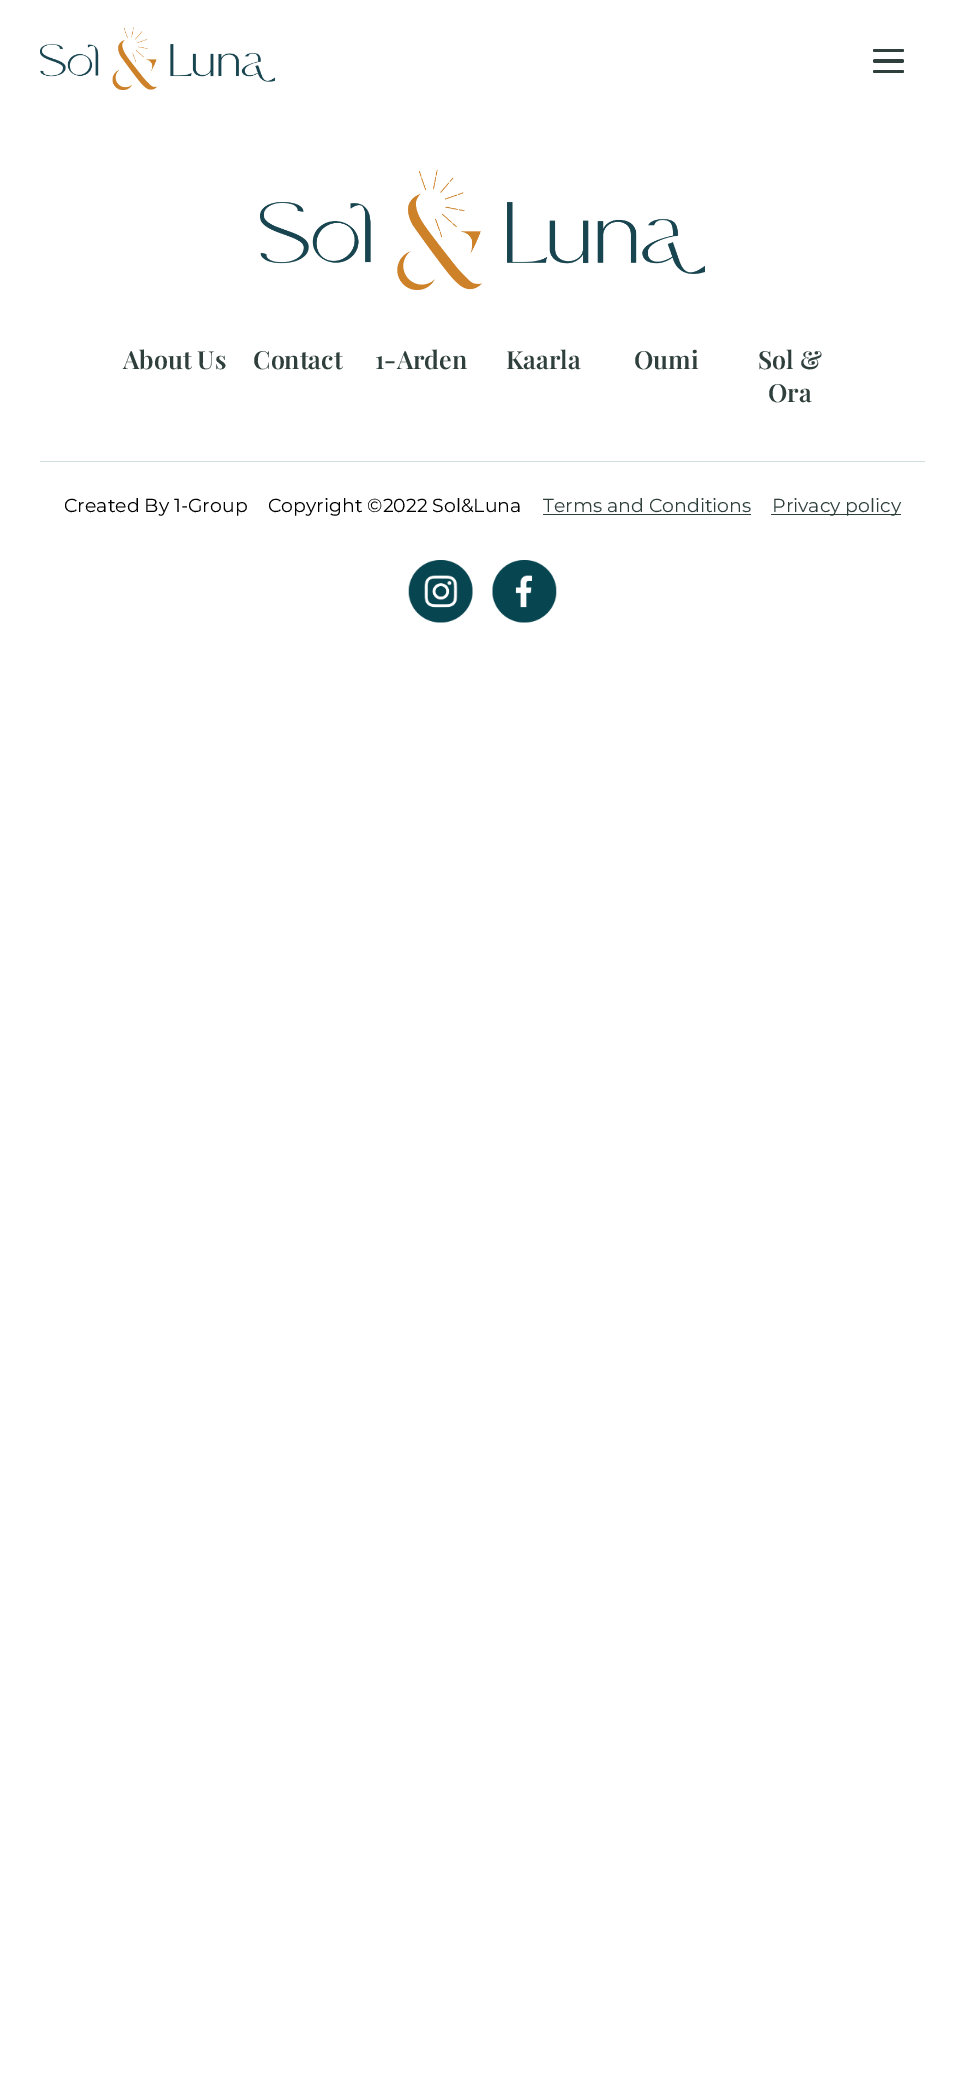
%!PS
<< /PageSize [964 2093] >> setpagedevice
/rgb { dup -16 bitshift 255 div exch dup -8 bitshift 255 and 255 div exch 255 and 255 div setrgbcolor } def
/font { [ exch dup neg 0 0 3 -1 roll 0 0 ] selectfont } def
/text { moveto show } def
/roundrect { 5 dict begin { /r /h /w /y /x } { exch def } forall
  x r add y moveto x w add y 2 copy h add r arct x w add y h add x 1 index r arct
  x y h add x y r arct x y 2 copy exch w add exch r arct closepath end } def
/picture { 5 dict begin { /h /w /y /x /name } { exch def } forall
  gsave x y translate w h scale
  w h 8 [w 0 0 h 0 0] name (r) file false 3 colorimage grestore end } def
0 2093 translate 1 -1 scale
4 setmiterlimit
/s1 { /PlayfairDisplay-SemiBold 25 font 16#2E3F3C rgb } def
/s2 { /Montserrat-Regular 18.9 font 16#000000 rgb } def
/s3 { /Montserrat-Regular 18.9 font 16#2E3F3C rgb } def
16#FFFFFF rgb
0 0 964 2093 rectfill
(pic1.raw) 40 27 235 63 picture
16#2E3F3C rgb
873 49 31 3 1.5 roundrect fill
873 59 31 4 2 roundrect fill
873 70 31 3 1.5 roundrect fill
(pic2.raw) 260 170 445 120 picture
s1
(About Us) 123 369 text
(Contact) 253 369 text
(1-Arden) 375 369 text
(Kaarla) 506 369 text
(Oumi) 634 369 text
(Sol &) 758 369 text
(Ora) 768 402 text
16#D0DCDE rgb
40 461 885 1 rectfill
s2
(Created By 1-Group) 64 512 text
(Copyright ©2022 Sol&Luna) 268 512 text
s3
(Terms and Conditions) 543 512 text
543 514 208 1 rectfill
771 514 130 1 rectfill
(Privacy policy) 772 512 text
(pic3.raw) 408 560 65 63 picture
(pic4.raw) 492 560 65 63 picture
showpage
